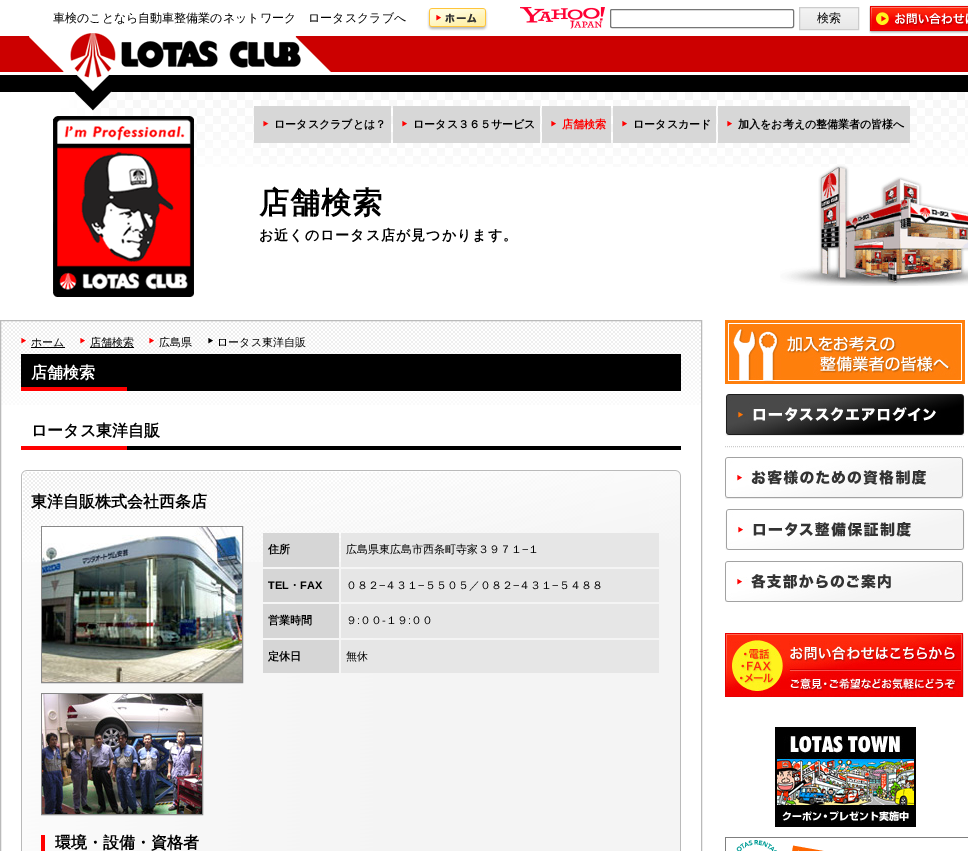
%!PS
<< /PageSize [968 851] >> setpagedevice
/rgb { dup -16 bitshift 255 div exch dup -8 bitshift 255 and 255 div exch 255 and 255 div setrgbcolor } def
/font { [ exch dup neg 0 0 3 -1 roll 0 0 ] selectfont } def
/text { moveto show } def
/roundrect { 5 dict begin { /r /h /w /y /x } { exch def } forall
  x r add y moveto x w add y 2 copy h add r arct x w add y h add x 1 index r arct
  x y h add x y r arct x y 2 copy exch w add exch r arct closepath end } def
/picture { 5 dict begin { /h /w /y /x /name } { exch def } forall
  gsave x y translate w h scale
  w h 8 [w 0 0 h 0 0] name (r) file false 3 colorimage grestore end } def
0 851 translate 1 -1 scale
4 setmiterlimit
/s1 { /WenQuanYiZenHei-Medium 12 font 16#000000 rgb } def
/s2 { /WenQuanYiZenHei-Bold 11 font 16#000000 rgb } def
/s3 { /WenQuanYiZenHei-Bold 11 font 16#FF0000 rgb } def
/s4 { /WenQuanYiZenHei-Medium 11 font 16#000000 rgb } def
/s5 { /WenQuanYiZenHei-Bold 16 font 16#FFFFFF rgb } def
/s6 { /WenQuanYiZenHei-Bold 16 font 16#000000 rgb } def
/s7 { /LiberationSans-Regular 11 font 16#000000 rgb } def
/s8 { /LiberationSans-Bold 11 font 16#000000 rgb } def
16#FFFFFF rgb
0 0 968 851 rectfill
(pic1.raw) 0 36 10 56 picture
(pic2.raw) 10 33 958 134 picture
s1
(車検のことなら自動車整備業のネットワーク　ロータスクラブへ) 53 22 text
(pic3.raw) 427 8 61 23 picture
(pic4.raw) 520 7 85 22 picture
16#767676 rgb
610.5 9.5 183 18 1.5 roundrect stroke
gsave 800 8 moveto 858 8 lineto 858 29 lineto 800 29 lineto closepath clip newpath
<< /ShadingType 2 /ColorSpace /DeviceRGB /Coords [829 8 829 29] /Extend [true true] /Function << /FunctionType 2 /Domain [0 1] /C0 [0.957 0.957 0.957] /C1 [0.91 0.91 0.91] /N 1 >> >> shfill grestore
16#CCCCCC rgb
799.5 7.5 59 22 rectstroke
s1
(検索) 817 22 text
(pic5.raw) 869 5 99 29 picture
(pic6.raw) 53 116 141 181 picture
16#D7D7D7 rgb
254 106 137 37 rectfill
(pic7.raw) 263 120 6 7 picture
s2
(ロータスクラブとは？) 274 128 text
16#D7D7D7 rgb
393 106 147 37 rectfill
(pic8.raw) 402 120 5 7 picture
s2
(ロータス３６５サービス) 413 128 text
16#D7D7D7 rgb
542 106 69 37 rectfill
(pic8.raw) 551 120 5 7 picture
s3
(店舗検索) 562 128 text
16#D7D7D7 rgb
613 106 103 37 rectfill
(pic8.raw) 622 120 5 7 picture
s2
(ロータスカード) 633 128 text
16#D7D7D7 rgb
718 106 192 37 rectfill
(pic8.raw) 727 120 5 7 picture
s2
(加入をお考えの整備業者の皆様へ) 738 128 text
/WenQuanYiZenHei-Bold 30 font
259 213 moveto 1 0 (店舗検索) ashow
/WenQuanYiZenHei-Bold 14 font
259 240 moveto 1 0 (お近くのロータス店が見つかります。) ashow
(pic9.raw) 780 165 188 121 picture
(pic10.raw) 1 321 700 84 picture
16#BABABA rgb
0.5 320.5 701 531 rectstroke
(pic11.raw) 21 337 6 7 picture
16#000000 rgb
31 347 34 1 rectfill
s4
(ホーム) 31 346 text
(pic12.raw) 80 337 6 7 picture
90 347 44 1 rectfill
(店舗検索) 90 346 text
(pic11.raw) 149 337 6 7 picture
(広島県) 159 346 text
(pic13.raw) 208 337 6 7 picture
(ロータス東洋自販) 217 346 text
(pic14.raw) 21 354 660 38 picture
s5
(店舗検索) 31 378 text
(pic15.raw) 21 446 660 4 picture
s6
(ロータス東洋自販) 31 436 text
(pic16.raw) 21 562 660 289 picture
(pic17.raw) 21 470 660 92 picture
(東洋自販株式会社西条店) 31 507 text
16#888888 rgb
41.5 526.5 201 156 rectstroke
(pic18.raw) 42 527 200 155 picture
41.5 693.5 161 121 rectstroke
(pic19.raw) 42 694 160 120 picture
16#D6D6D6 rgb
263 533 76 34 rectfill
s2
(住所) 268 553 text
16#E6E6E6 rgb
341 533 318 34 rectfill
s4
(広島県東広島市西条町寺家３９７１) 346 553 text
s7
(−) 522 553 text
s4
(１) 528 553 text
16#D6D6D6 rgb
263 569 76 33 rectfill
s8
(TEL) 268 589 text
s2
(・) 289 589 text
s8
(FAX) 300 589 text
16#E6E6E6 rgb
341 569 318 33 rectfill
s4
(０８２) 346 589 text
s7
(−) 379 589 text
s4
(４３１) 385 589 text
s7
(−) 418 589 text
s4
(５５０５／０８２) 425 589 text
s7
(−) 513 589 text
s4
(４３１) 519 589 text
s7
(−) 552 589 text
s4
(５４８８) 559 589 text
16#D6D6D6 rgb
263 604 76 34 rectfill
s2
(営業時間) 268 624 text
16#E6E6E6 rgb
341 604 318 34 rectfill
s4
(９ ００) 346 624 text
(１９ ００) 386 624 text
s7
(:) 357 624 text
(-) 382 624 text
(:) 408 624 text
16#D6D6D6 rgb
263 640 76 33 rectfill
s2
(定休日) 268 660 text
16#E6E6E6 rgb
341 640 318 33 rectfill
s4
(無休) 346 660 text
16#FF0000 rgb
41 835 4 16 rectfill
s6
(環境・設備・資格者) 55 848 text
(pic20.raw) 725 320 240 64 picture
(pic21.raw) 725 394 240 42 picture
16#CCCCCC rgb
[1 1] 0 setdash
725 446.5 moveto 965 446.5 lineto stroke
(pic22.raw) 725 457 239 42 picture
(pic23.raw) 725 509 240 41 picture
(pic24.raw) 725 561 239 41 picture
(pic25.raw) 725 633 240 64 picture
(pic26.raw) 775 727 141 100 picture
(pic27.raw) 725 837 243 14 picture
showpage
